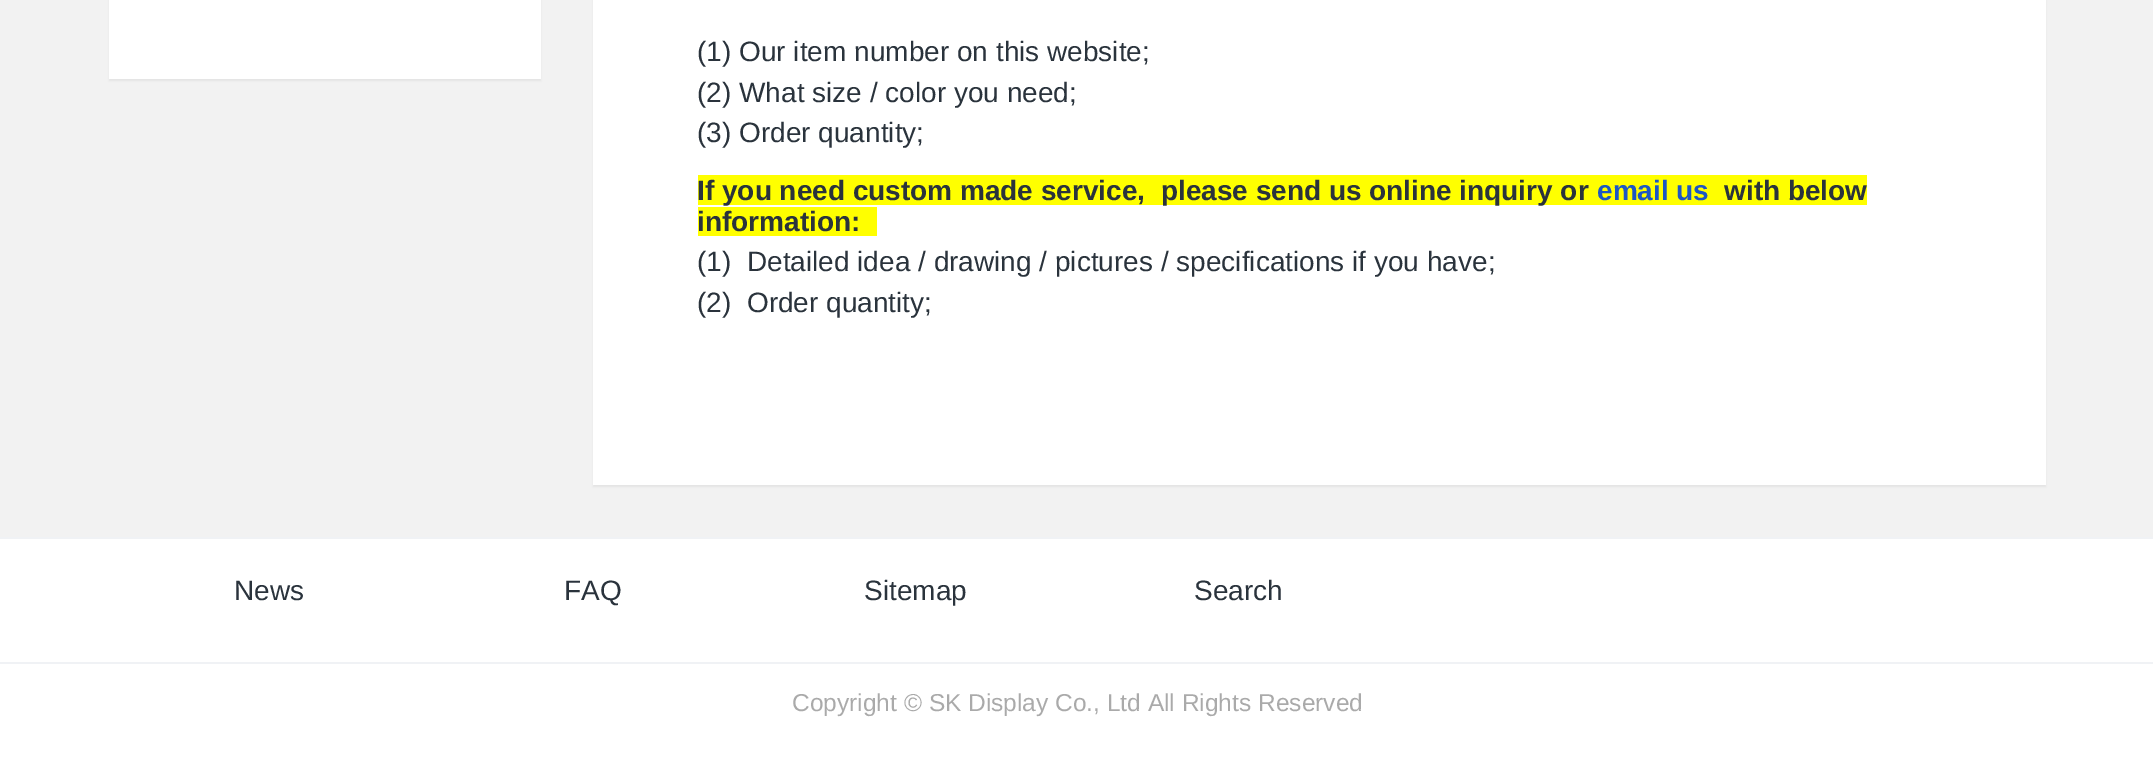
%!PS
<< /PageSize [2153 777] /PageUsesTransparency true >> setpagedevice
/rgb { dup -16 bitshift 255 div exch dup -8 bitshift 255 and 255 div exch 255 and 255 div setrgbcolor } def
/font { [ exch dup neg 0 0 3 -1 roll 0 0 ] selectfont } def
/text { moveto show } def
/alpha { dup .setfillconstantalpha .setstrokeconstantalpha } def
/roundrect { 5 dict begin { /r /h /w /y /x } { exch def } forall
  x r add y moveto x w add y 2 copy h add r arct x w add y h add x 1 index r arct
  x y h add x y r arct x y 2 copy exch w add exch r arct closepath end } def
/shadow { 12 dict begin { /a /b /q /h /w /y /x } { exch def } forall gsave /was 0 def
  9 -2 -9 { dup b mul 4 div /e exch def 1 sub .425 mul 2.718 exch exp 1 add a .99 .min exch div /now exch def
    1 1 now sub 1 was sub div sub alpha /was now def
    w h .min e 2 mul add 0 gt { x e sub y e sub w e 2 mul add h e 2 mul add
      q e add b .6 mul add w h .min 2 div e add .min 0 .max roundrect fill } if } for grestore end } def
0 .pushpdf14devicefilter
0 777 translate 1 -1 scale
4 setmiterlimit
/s1 { /LiberationSans-Regular 28 font 16#2A333C rgb } def
/s2 { /LiberationSans-Bold 28 font 16#2A333C rgb } def
/s3 { /LiberationSans-Bold 28 font 16#1C57C4 rgb } def
/s4 { /LiberationSans-Regular 24.5 font 16#AAAAAA rgb } def
16#FFFFFF rgb
0 0 2153 777 rectfill
16#F2F2F2 rgb
0 0 2153 537 rectfill
16#000000 rgb
109 -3 432 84 0 1 0.05 shadow
16#FFFFFF rgb
109 0 432 79 rectfill
16#000000 rgb
593 -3 1453 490 0 1 0.05 shadow
16#FFFFFF rgb
593 0 1453 485 rectfill
s1
(\(1\) Our item number on this website;) 697 61 text
(\(2\) What size / color you need;) 697 102 text
(\(3\) Order quantity;) 697 142 text
16#FFFF00 rgb
698 175 1169 30 rectfill
s2
(If you need custom made service,  please send us online inquiry or) 697 200 text
s3
(email us) 1597 200 text
s2
(with below) 1724 200 text
16#FFFF00 rgb
698 207 179 29 rectfill
s2
(information:) 697 231 text
s1
(\(1\)  Detailed idea / drawing / pictures / specifications if you have;) 697 271 text
(\(2\)  Order quantity;) 697 312 text
16#F0F2F5 rgb
0 537 2153 2 rectfill
s1
(News) 234 600 text
(FAQ) 564 600 text
(Sitemap) 864 600 text
(Search) 1194 600 text
16#F0F2F5 rgb
0 662 2153 2 rectfill
s4
(Copyright © SK Display Co., Ltd All Rights Reserved) 792 711 text
.poppdf14devicefilter showpage
